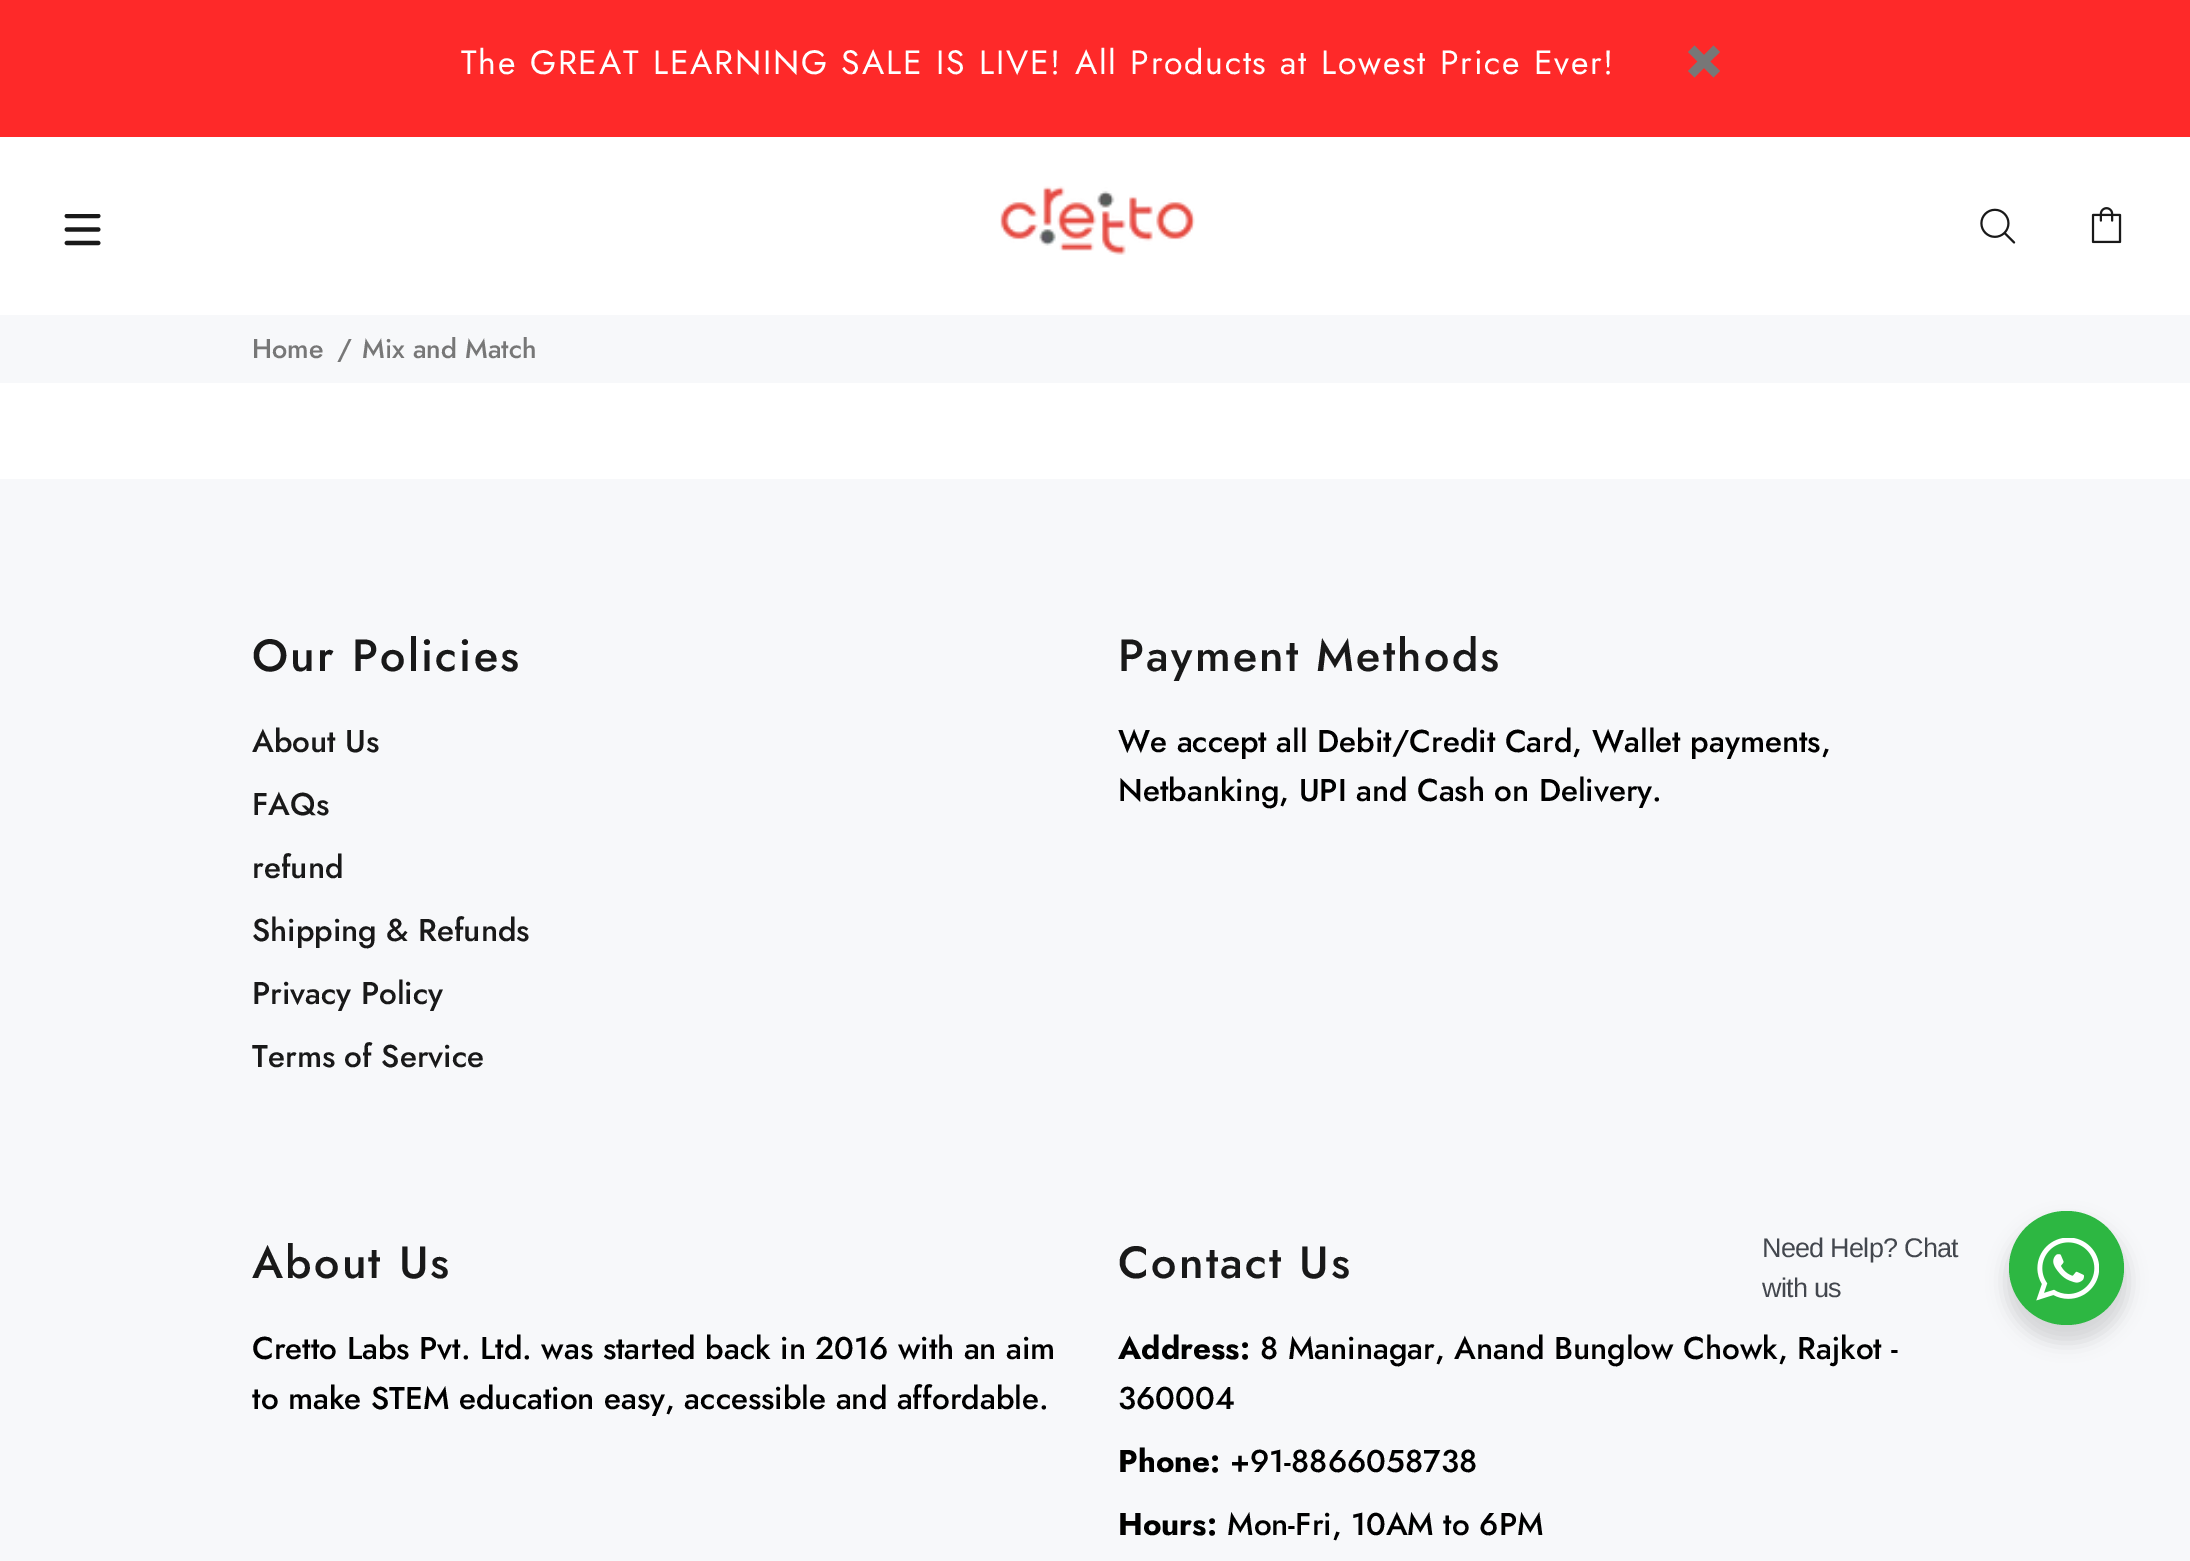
%!PS
<< /PageSize [2190 1561] /PageUsesTransparency true >> setpagedevice
/rgb { dup -16 bitshift 255 div exch dup -8 bitshift 255 and 255 div exch 255 and 255 div setrgbcolor } def
/font { [ exch dup neg 0 0 3 -1 roll 0 0 ] selectfont } def
/text { moveto show } def
/alpha { dup .setfillconstantalpha .setstrokeconstantalpha } def
/roundrect { 5 dict begin { /r /h /w /y /x } { exch def } forall
  x r add y moveto x w add y 2 copy h add r arct x w add y h add x 1 index r arct
  x y h add x y r arct x y 2 copy exch w add exch r arct closepath end } def
/shadow { 12 dict begin { /a /b /q /h /w /y /x } { exch def } forall gsave /was 0 def
  9 -2 -9 { dup b mul 4 div /e exch def 1 sub .425 mul 2.718 exch exp 1 add a .99 .min exch div /now exch def
    1 1 now sub 1 was sub div sub alpha /was now def
    w h .min e 2 mul add 0 gt { x e sub y e sub w e 2 mul add h e 2 mul add
      q e add b .6 mul add w h .min 2 div e add .min 0 .max roundrect fill } if } for grestore end } def
/picture { 5 dict begin { /h /w /y /x /name } { exch def } forall
  gsave x y translate w h scale
  w h 8 [w 0 0 h 0 0] name (r) file false 3 colorimage grestore end } def
0 .pushpdf14devicefilter
0 1561 translate 1 -1 scale
4 setmiterlimit
/s1 { /Jost-Medium 27 font 16#777777 rgb } def
/s2 { /Jost-Medium 31.5 font 16#191919 rgb } def
/s3 { /Jost-Medium 31.5 font 16#000000 rgb } def
/s4 { /Jost-Bold 31.5 font 16#000000 rgb } def
16#FFFFFF rgb
0 0 2190 1561 rectfill
16#FE2929 rgb
0 0 2190 137 rectfill
/Jost-Regular 33.75 font
16#FFFFFF rgb
461 74 moveto 0.9 0 32 1.75 0 (The GREAT LEARNING SALE IS LIVE! All Products at Lowest Price Ever!) awidthshow
16#777777 rgb
1720 52 moveto 1710 61.5 lineto 1720 71 lineto 1713.5 77.5 lineto 1704 68 lineto 1694.5 77.5 lineto 1688 71 lineto 1697.5 61.5 lineto 1688 52 lineto 1694.5 45.5 lineto 1704 55 lineto 1713.5 45.5 lineto closepath fill
(pic1.raw) 64 214 37 32 picture
(pic2.raw) 1000 186 195 69 picture
(pic3.raw) 1980 208 36 36 picture
(pic4.raw) 2091 207 31 37 picture
16#F7F8FA rgb
0 315 2190 68 rectfill
s1
(Home) 252 358 text
(/) 337 358 text
(Mix and Match) 362 358 text
16#F7F8FA rgb
0 479 2190 1082 rectfill
/Jost-Medium 45 font
16#191919 rgb
252 671 moveto 2.25 0 (Our Policies) ashow
s2
(About Us) 252 752 text
(FAQs) 252 815 text
(refund) 252 878 text
(Shipping & Refunds) 252 941 text
(Privacy Policy) 252 1004 text
(Terms of Service) 252 1067 text
/Jost-Medium 45 font
1118 671 moveto 2.25 0 (Payment Methods) ashow
s3
(We accept all Debit/Credit Card, Wallet payments,) 1118 752 text
(Netbanking, UPI and Cash on Delivery.) 1118 801 text
/Jost-Medium 45 font
16#191919 rgb
252 1278 moveto 2.25 0 (About Us) ashow
s3
(Cretto Labs Pvt. Ltd. was started back in 2016 with an aim) 252 1359 text
(to make STEM education easy, accessible and affordable.) 252 1409 text
/Jost-Medium 45 font
16#191919 rgb
1118 1278 moveto 2.25 0 (Contact Us) ashow
s4
(Address:) 1118 1359 text
s3
(8 Maninagar, Anand Bunglow Chowk, Rajkot -) 1260 1359 text
(360004) 1118 1409 text
s4
(Phone:) 1118 1472 text
s3
(+91-8866058738) 1230 1472 text
s4
(Hours:) 1118 1535 text
s3
(Mon-Fri, 10AM to 6PM) 1227 1535 text
/LiberationSans-Regular 27 font
16#43474E rgb
1762 1257 moveto -0.75 0 (Need Help? Chat) ashow
1762 1297 moveto -0.75 0 (with us) ashow
16#000000 rgb
2005 1220 124 123 61.5 9 0.14 shadow
16#2DB742 rgb
2009 1211 115 114 57 roundrect fill
(pic5.raw) 2036 1238 63 63 picture
.poppdf14devicefilter showpage
